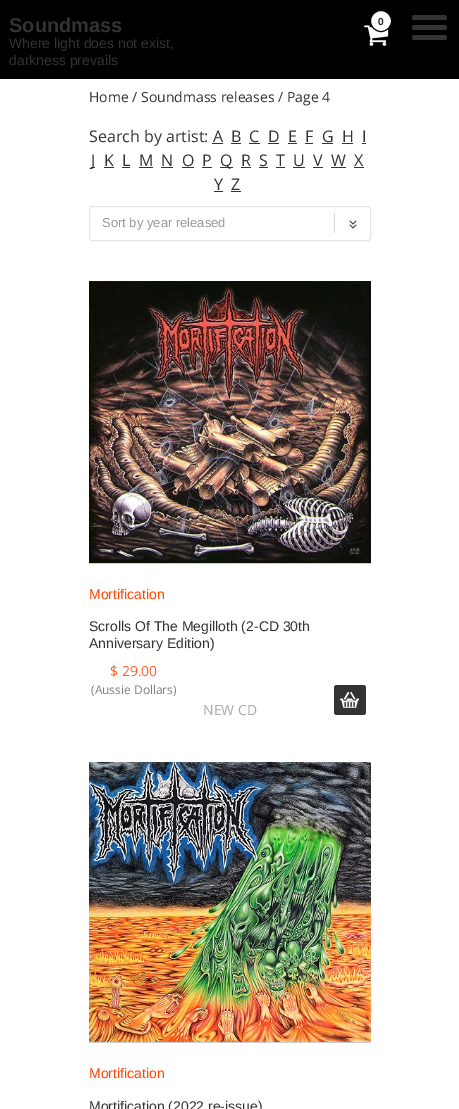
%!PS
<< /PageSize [459 1109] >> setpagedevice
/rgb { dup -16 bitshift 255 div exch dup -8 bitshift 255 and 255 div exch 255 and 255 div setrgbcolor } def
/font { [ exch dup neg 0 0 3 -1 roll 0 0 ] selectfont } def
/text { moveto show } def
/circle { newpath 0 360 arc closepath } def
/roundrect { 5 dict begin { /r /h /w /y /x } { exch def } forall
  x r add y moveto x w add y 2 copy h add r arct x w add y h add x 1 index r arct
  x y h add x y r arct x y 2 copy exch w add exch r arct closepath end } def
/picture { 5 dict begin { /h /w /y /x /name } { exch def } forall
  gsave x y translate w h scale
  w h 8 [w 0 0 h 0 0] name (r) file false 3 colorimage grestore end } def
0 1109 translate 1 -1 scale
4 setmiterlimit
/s1 { /LiberationSans-Bold 20 font 16#333333 rgb } def
/s2 { /LiberationSans-Regular 14 font 16#333333 rgb } def
/s3 { /OpenSans-Bold 10 font 16#333333 rgb } def
/s4 { /OpenSans-Regular 14 font 16#333333 rgb } def
/s5 { /OpenSans-Regular 16 font 16#333333 rgb } def
/s6 { /LiberationSans-Regular 13 font 16#999999 rgb } def
/s7 { /LiberationSans-Regular 14 font 16#FE4502 rgb } def
/s8 { /OpenSans-Regular 14 font 16#FF5D2A rgb } def
/s9 { /OpenSans-Regular 12 font 16#808080 rgb } def
/s10 { /OpenSans-Regular 14 font 16#AAAAAA rgb } def
16#FFFFFF rgb
0 0 459 1109 rectfill
16#000000 rgb
0 0 459 79 rectfill
s1
(Soundmass) 9 32 text
s2
(Where light does not exist,) 9 48 text
(darkness prevails) 9 65 text
(pic1.raw) 364 25 25 21 picture
16#FFFFFF rgb
381 21 10.5 circle gsave fill grestore
16#020202 rgb
stroke
s3
(0) 378 25 text
412 15 35 5 2.5 roundrect fill
412 25 35 5 2.5 roundrect fill
412 35 35 5 2.5 roundrect fill
s4
(Home / Soundmass releases / Page 4) 89 102 text
s5
(Search by artist: A) 89 142 text
(B) 231 142 text
231 143 10 1 rectfill
(C) 249 142 text
249 143 11 1 rectfill
(D) 268 142 text
268 143 11 1 rectfill
(E) 288 142 text
288 143 9 1 rectfill
(F) 305 142 text
305 143 8 1 rectfill
(G) 322 142 text
322 143 11 1 rectfill
(H) 342 142 text
342 143 11 1 rectfill
(I) 362 142 text
362 143 4 1 rectfill
212 143 11 1 rectfill
91 167 4 1 rectfill
(J) 91 166 text
(K) 104 166 text
104 167 10 1 rectfill
(L) 122 166 text
122 167 8 1 rectfill
(M) 139 166 text
139 167 14 1 rectfill
(N) 161 166 text
161 167 12 1 rectfill
(O) 182 166 text
182 167 12 1 rectfill
(P) 202 166 text
202 167 10 1 rectfill
220 167 13 1 rectfill
(Q) 220 166 text
(R) 241 166 text
241 167 10 1 rectfill
(S) 259 166 text
259 167 9 1 rectfill
(T) 276 166 text
276 167 9 1 rectfill
(U) 293 166 text
293 167 12 1 rectfill
(V) 313 166 text
313 167 10 1 rectfill
(W) 331 166 text
331 167 15 1 rectfill
(X) 354 166 text
354 167 10 1 rectfill
(Y) 214 190 text
214 191 9 1 rectfill
(Z) 231 190 text
231 191 10 1 rectfill
(pic2.raw) 334 213 23 20 picture
16#E5E5E5 rgb
89.5 206.5 281 34 2.5 roundrect stroke
s6
(Sort by year released) 102 227 text
16#CCCCCC rgb
89 563 282 1 rectfill
(pic3.raw) 89 281 282 282 picture
s7
(Mortification) 89 599 text
s2
(Scrolls Of The Megilloth \(2-CD 30th) 89 631 text
(Anniversary Edition\)) 89 648 text
s8
($ 29.00) 110 676 text
s9
(\(Aussie Dollars\)) 91 694 text
s10
(NEW CD) 203 715 text
(pic4.raw) 334 685 32 30 picture
16#CCCCCC rgb
89 1042 282 1 rectfill
(pic5.raw) 89 762 282 280 picture
s7
(Mortification) 89 1078 text
s2
(Mortification \(2022 re-issue\)) 89 1111 text
showpage
